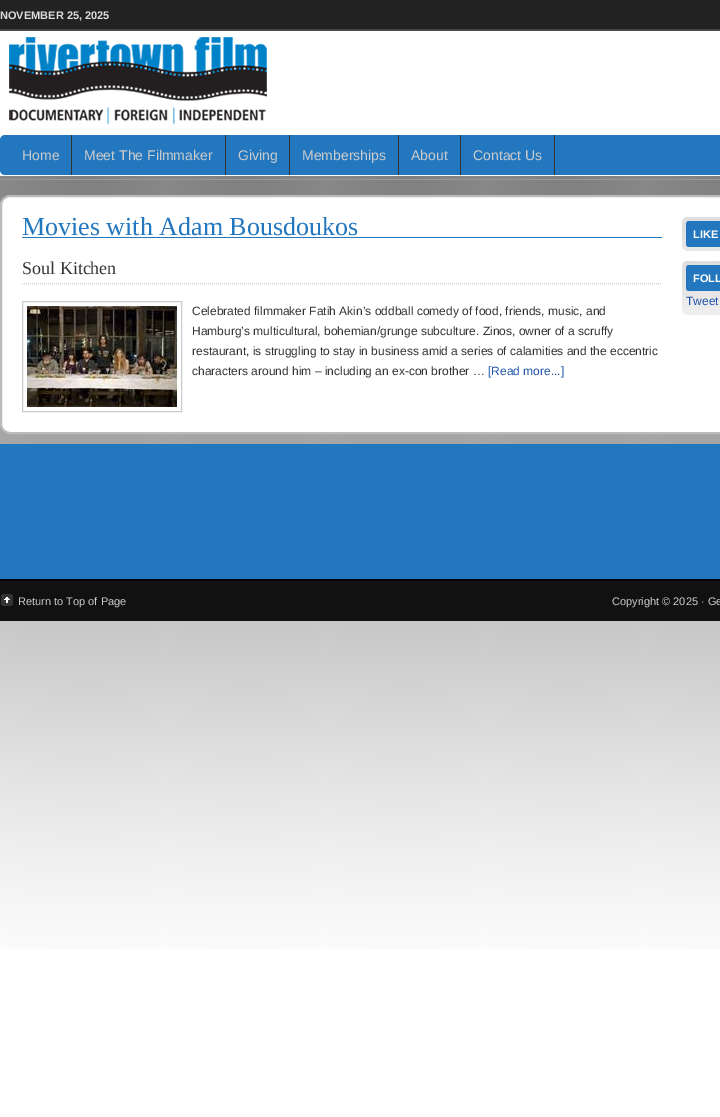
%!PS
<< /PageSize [720 1117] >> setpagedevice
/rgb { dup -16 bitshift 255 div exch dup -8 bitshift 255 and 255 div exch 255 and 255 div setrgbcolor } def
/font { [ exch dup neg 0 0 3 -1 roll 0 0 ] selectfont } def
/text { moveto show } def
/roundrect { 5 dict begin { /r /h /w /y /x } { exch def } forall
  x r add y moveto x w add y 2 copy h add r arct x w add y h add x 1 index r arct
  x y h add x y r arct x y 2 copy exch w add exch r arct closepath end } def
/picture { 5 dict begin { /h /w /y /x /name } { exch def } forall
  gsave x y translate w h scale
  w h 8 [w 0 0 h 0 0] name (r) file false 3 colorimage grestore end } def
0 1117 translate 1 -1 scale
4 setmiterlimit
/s1 { /LiberationSans-Bold 11 font 16#DDDDDD rgb } def
/s2 { /LiberationSans-Regular 14 font 16#CCCCCC rgb } def
/s3 { /LiberationSerif-Regular 26 font 16#2377BF rgb } def
/s4 { /LiberationSerif-Regular 18 font 16#333333 rgb } def
/s5 { /LiberationSans-Regular 12 font 16#333333 rgb } def
/s6 { /LiberationSans-Regular 12 font 16#2255AA rgb } def
/s7 { /LiberationSans-Bold 11 font 16#FFFFFF rgb } def
/s8 { /LiberationSans-Regular 11 font 16#CCCCCC rgb } def
16#FFFFFF rgb
0 0 720 1117 rectfill
(pic1.raw) 0 0 720 949 picture
s1
(NOVEMBER 25, 2025) 0 19 text
(pic2.raw) 9 37 258 87 picture
16#2377BF rgb
0 135 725 40 5 roundrect fill
16#333333 rgb
71 135 1 40 rectfill
s2
(Home) 22 160 text
16#333333 rgb
225 135 1 40 rectfill
s2
(Meet The Filmmaker) 84 160 text
16#333333 rgb
289 135 1 40 rectfill
s2
(Giving) 238 160 text
16#333333 rgb
398 135 1 40 rectfill
s2
(Memberships) 302 160 text
16#333333 rgb
460 135 1 40 rectfill
s2
(About) 411 160 text
16#333333 rgb
554 135 1 40 rectfill
s2
(Contact Us) 473 160 text
16#FFFFFF rgb
1 196 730 237 9 roundrect gsave fill grestore
16#BBBBBB rgb
2 setlinewidth
stroke
16#2377BF rgb
22 237 640 1 rectfill
s3
(Movies with Adam Bousdoukos) 22 235 text
s4
(Soul Kitchen) 22 274 text
16#CCCCCC rgb
1 setlinewidth
[1 1] 0 setdash
22 283.5 moveto 662 283.5 lineto stroke
[] 0 setdash
22.5 301.5 159 110 rectstroke
(pic3.raw) 27 306 150 101 picture
s5
(Celebrated filmmaker Fatih Akin’s oddball comedy of food, friends, music, and) 192 315 text
(Hamburg’s multicultural, bohemian/grunge subculture. Zinos, owner of a scruffy) 192 335 text
(restaurant, is struggling to stay in business amid a series of calamities and the eccentric) 192 355 text
(characters around him – including an ex-con brother …) 192 375 text
s6
([Read more...]) 488 375 text
(pic4.raw) 682 217 38 34 picture
16#2377BF rgb
686 221 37 26 3 roundrect fill
s7
(LIKE) 693 238 text
(pic5.raw) 682 261 38 54 picture
16#2377BF rgb
686 265 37 26 3 roundrect fill
s7
(FOLL) 693 282 text
s6
(Tweet) 686 305 text
16#2377BF rgb
0 444 720 135 rectfill
16#111111 rgb
0 581 720 40 rectfill
16#000000 rgb
0 579 720 2 rectfill
(pic6.raw) 1 594 12 12 picture
s8
(Return to Top of Page) 18 605 text
(Copyright © 2025 · Ge) 612 605 text
showpage
